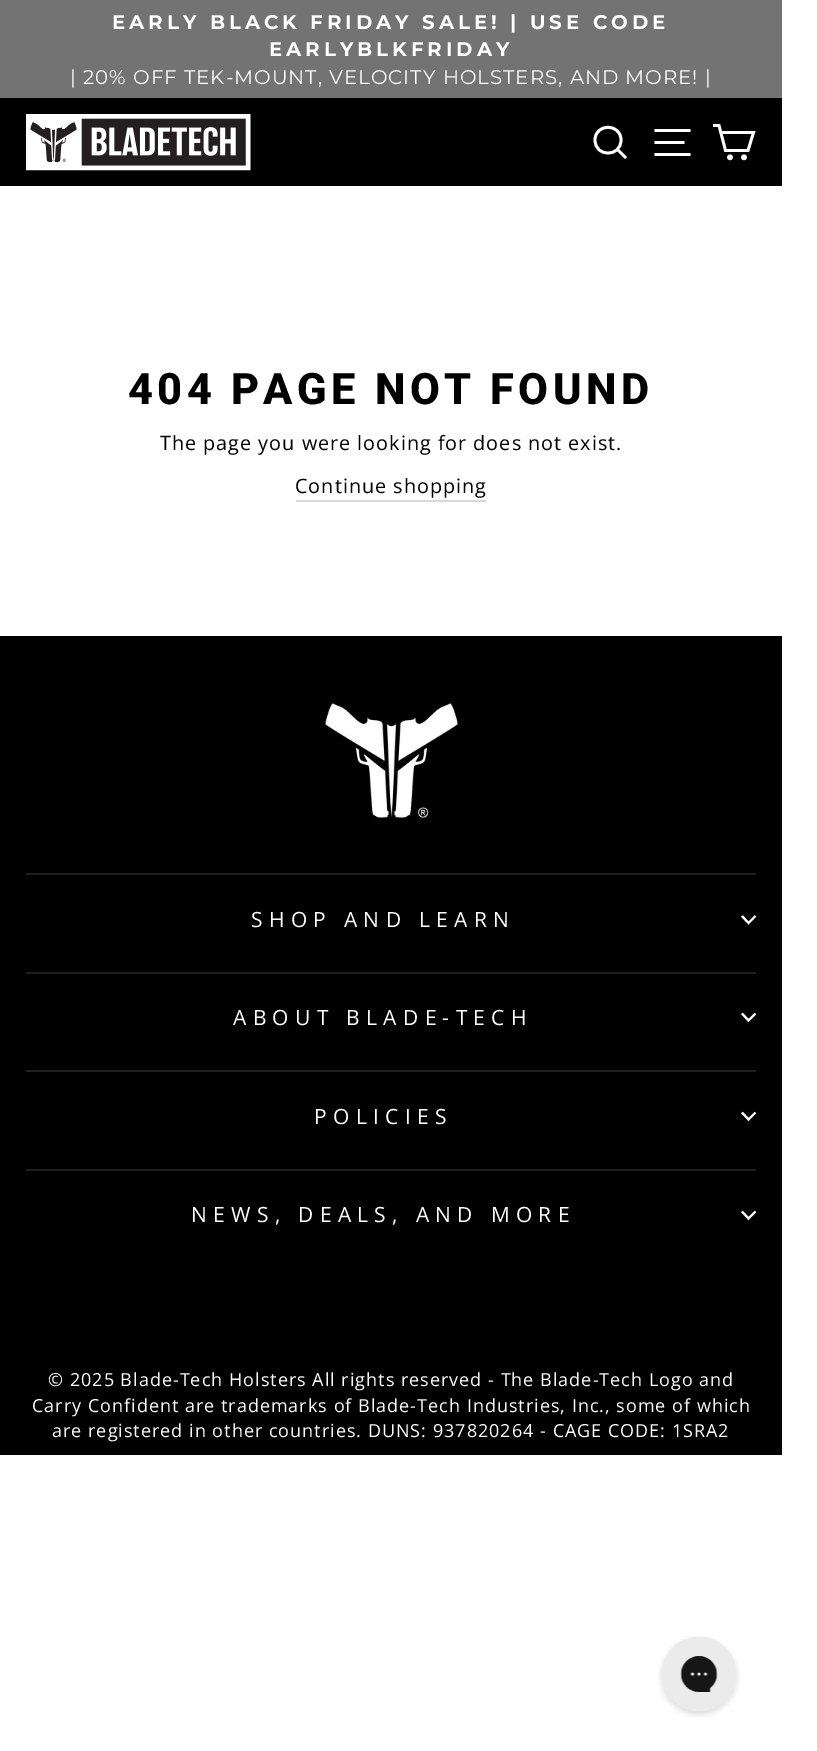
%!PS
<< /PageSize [817 1751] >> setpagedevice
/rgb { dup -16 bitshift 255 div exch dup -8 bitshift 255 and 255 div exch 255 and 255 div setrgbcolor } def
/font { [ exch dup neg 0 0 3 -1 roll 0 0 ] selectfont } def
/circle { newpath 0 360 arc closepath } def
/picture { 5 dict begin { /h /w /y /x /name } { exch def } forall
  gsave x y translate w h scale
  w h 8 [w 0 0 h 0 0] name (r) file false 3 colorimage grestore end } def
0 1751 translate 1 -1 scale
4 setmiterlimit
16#FFFFFF rgb
0 0 817 1751 rectfill
16#737373 rgb
0 0 782 98 rectfill
/Montserrat-Bold 19.8 font
16#FFFFFF rgb
112 29 moveto 3.95 0 (EARLY BLACK FRIDAY SALE! | USE CODE) ashow
269 56 moveto 3.95 0 (EARLYBLKFRIDAY) ashow
/Montserrat-Regular 19.8 font
70 84 moveto 1 0 (| 20% OFF TEK-MOUNT, VELOCITY HOLSTERS, AND MORE! |) ashow
16#000000 rgb
0 98 782 88 rectfill
(pic1.raw) 26 114 225 57 picture
16#FFFFFF rgb
2.8 setlinewidth
621 140 moveto 621 157.5 595 157.5 595 140 curveto 595 123 621 123 621 140 curveto closepath 626 158 moveto 617.5 149.5 lineto stroke
654.5 130.5 moveto 690.5 130.5 lineto 654.5 142.5 moveto 684.5 142.5 lineto 654.5 154.5 moveto 690.5 154.5 lineto stroke
721 132.5 moveto 753.5 132.5 lineto 748 150.5 lineto 725.5 150.5 lineto 719 125.5 lineto 713 125.5 lineto stroke
730 157.3 1.4 circle stroke
744 157.3 1.4 circle stroke
/Roboto-ExtraBold 43.4 font
16#000000 rgb
128 404 moveto 4.3 0 (404 PAGE NOT FOUND) ashow
/OpenSans-Regular 19.8 font
160 450 moveto 1 0 (The page you were looking for does not exist.) ashow
16#D9D9D9 rgb
296 500 190 2 rectfill
16#000000 rgb
295 493 moveto 1 0 (Continue shopping) ashow
0 636 782 819 rectfill
(pic2.raw) 325 703 133 115 picture
16#1F1F1F rgb
26 873 730 2 rectfill
/OpenSans-Regular 21 font
16#FFFFFF rgb
251 927 moveto 6.3 0 (SHOP AND LEARN) ashow
2.1 setlinewidth
742 916 moveto 748.5 923 lineto 755.5 916 lineto stroke
16#1F1F1F rgb
26 972 730 2 rectfill
16#FFFFFF rgb
233 1025 moveto 6.3 0 (ABOUT BLADE-TECH) ashow
742 1013.5 moveto 748.5 1020.5 lineto 755.5 1013.5 lineto stroke
16#1F1F1F rgb
26 1070 730 2 rectfill
16#FFFFFF rgb
314 1124 moveto 6.3 0 (POLICIES) ashow
742 1112.5 moveto 748.5 1119.5 lineto 755.5 1112.5 lineto stroke
16#1F1F1F rgb
26 1169 730 2 rectfill
16#FFFFFF rgb
191 1222 moveto 6.3 0 (NEWS, DEALS, AND MORE) ashow
742 1211.5 moveto 748.5 1218.5 lineto 755.5 1211.5 lineto stroke
/OpenSans-Regular 18 font
48 1386 moveto 1 0 (© 2025 Blade-Tech Holsters All rights reserved - The Blade-Tech Logo and) ashow
32 1412 moveto 1 0 (Carry Confident are trademarks of Blade-Tech Industries, Inc., some of which) ashow
52 1437 moveto 1 0 (are registered in other countries. DUNS: 937820264 - CAGE CODE: 1SRA2) ashow
(pic3.raw) 658 1636 82 82 picture
showpage
